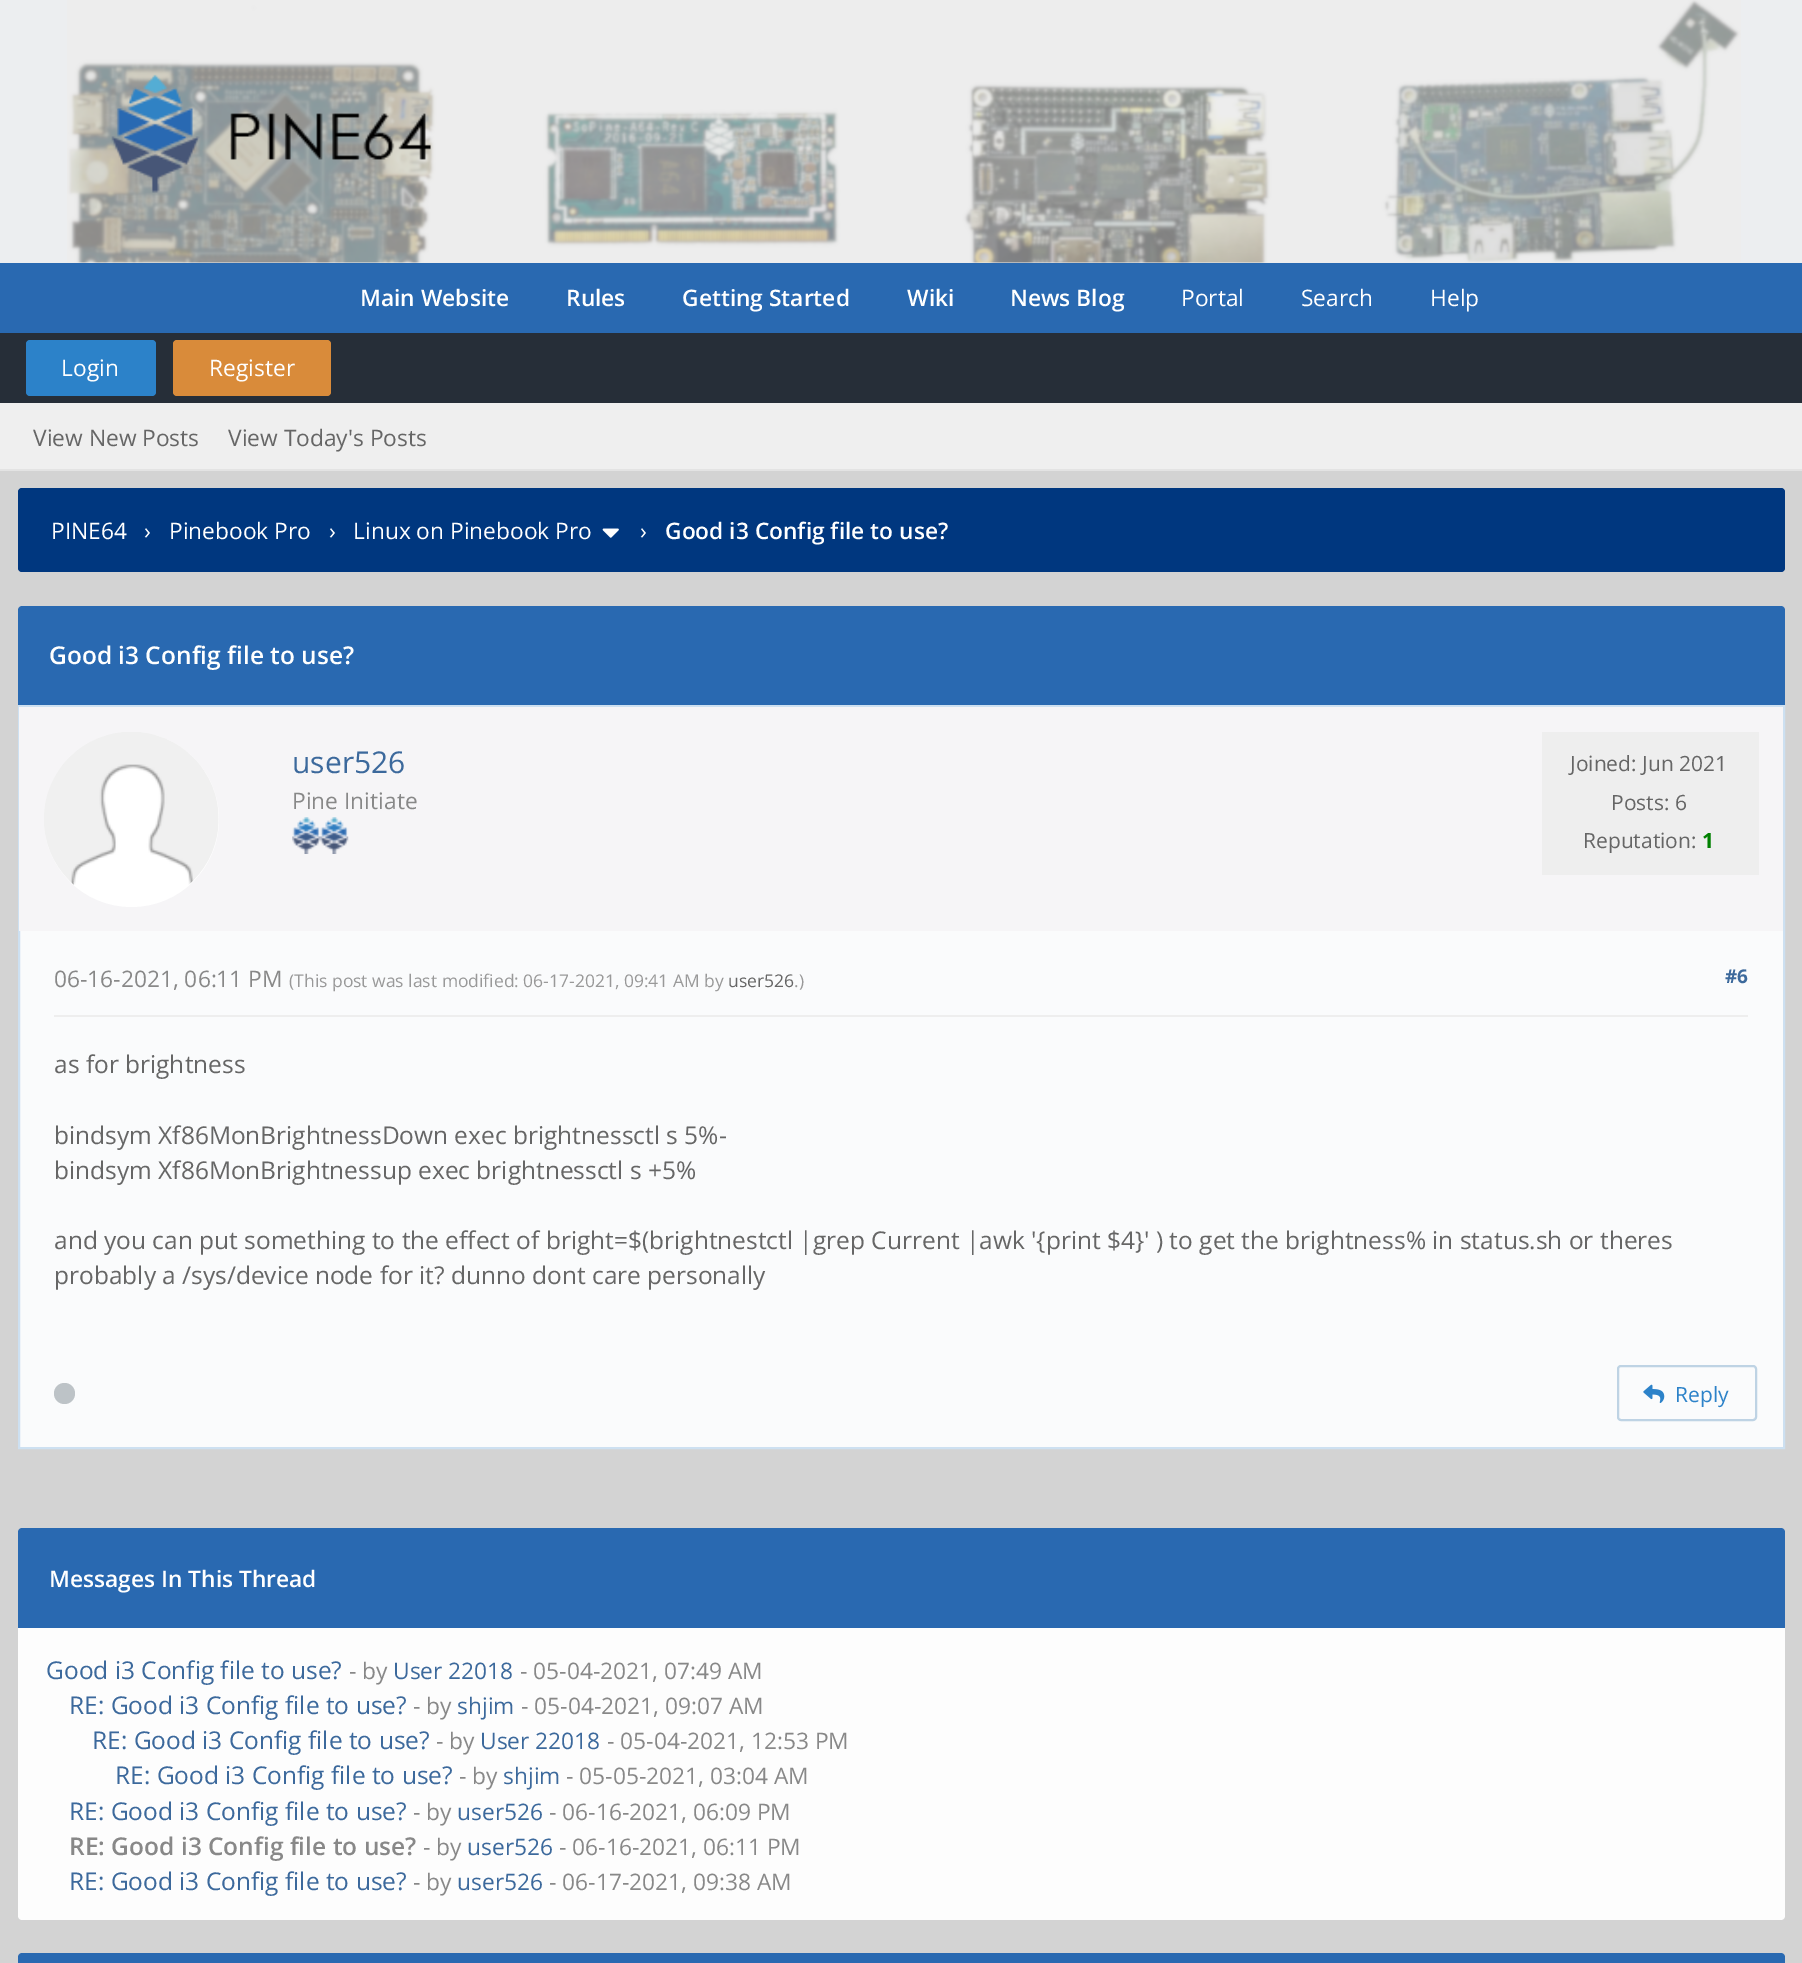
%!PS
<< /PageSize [1802 1963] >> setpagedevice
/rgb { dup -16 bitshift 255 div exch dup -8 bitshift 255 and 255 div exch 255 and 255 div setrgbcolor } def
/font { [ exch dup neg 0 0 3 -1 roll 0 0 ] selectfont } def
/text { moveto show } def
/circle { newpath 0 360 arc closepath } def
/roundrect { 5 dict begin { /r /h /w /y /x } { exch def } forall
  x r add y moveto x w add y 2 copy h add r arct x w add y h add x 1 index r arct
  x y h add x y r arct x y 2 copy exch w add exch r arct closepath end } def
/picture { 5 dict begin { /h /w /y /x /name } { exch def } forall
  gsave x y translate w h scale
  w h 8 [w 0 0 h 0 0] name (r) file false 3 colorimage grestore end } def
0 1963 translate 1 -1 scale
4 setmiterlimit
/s1 { /OpenSans-SemiBold 22.75 font 16#FFFFFF rgb } def
/s2 { /OpenSans-Regular 22.75 font 16#FFFFFF rgb } def
/s3 { /OpenSans-Regular 22.75 font 16#666666 rgb } def
/s4 { /OpenSans-SemiBold 24.5 font 16#FFFFFF rgb } def
/s5 { /OpenSans-Regular 30 font 16#3C699C rgb } def
/s6 { /OpenSans-Regular 22.75 font 16#888888 rgb } def
/s7 { /OpenSans-Regular 21 font 16#666666 rgb } def
/s8 { /OpenSans-Bold 21 font 16#008000 rgb } def
/s9 { /OpenSans-Regular 17.5 font 16#999999 rgb } def
/s10 { /OpenSans-Regular 17.5 font 16#666666 rgb } def
/s11 { /OpenSans-Bold 19 font 16#3C699C rgb } def
/s12 { /OpenSans-Regular 24.5 font 16#666666 rgb } def
/s13 { /OpenSans-Regular 21 font 16#2C82C9 rgb } def
/s14 { /OpenSans-Regular 24.5 font 16#3C699C rgb } def
/s15 { /OpenSans-Regular 22.75 font 16#3C699C rgb } def
/s16 { /OpenSans-SemiBold 24.5 font 16#888888 rgb } def
16#ECEEF0 rgb
0 0 1802 1963 rectfill
(pic1.raw) 67 0 1674 263 picture
(pic2.raw) 111 74 320 119 picture
16#2969B1 rgb
0 263 1802 70 rectfill
s1
(Main Website) 360 306 text
(Rules) 566 306 text
(Getting Started) 682 306 text
(Wiki) 907 306 text
(News Blog) 1010 306 text
s2
(Portal) 1181 306 text
(Search) 1301 306 text
(Help) 1430 306 text
16#262E38 rgb
0 333 1802 70 rectfill
16#2C82C9 rgb
26 340 130 56 4 roundrect fill
s2
(Login) 61 376 text
16#D98B3A rgb
173 340 158 56 4 roundrect fill
s2
(Register) 209 376 text
16#EFEFEF rgb
0 403 1802 66 rectfill
16#E3E3E3 rgb
0 469 1802 2 rectfill
s3
(View New Posts) 33 446 text
(View Today's Posts) 228 446 text
16#D3D3D3 rgb
0 471 1802 1492 rectfill
16#00377F rgb
18 488 1767 84 4 roundrect fill
s2
(PINE64) 51 539 text
(›) 144 539 text
(Pinebook Pro) 169 539 text
(›) 329 539 text
(Linux on Pinebook Pro) 353 539 text
(pic3.raw) 602 528 17 10 picture
(›) 640 539 text
s1
(Good i3 Config file to use?) 665 539 text
16#2969B1 rgb
22 606 moveto 1781 606 lineto 1783 606 1785 608 1785 610 curveto 1785 705 lineto 18 705 lineto 18 610 lineto 18 608 20 606 22 606 curveto closepath fill
s4
(Good i3 Config file to use?) 49 664 text
16#FAFBFC rgb
20 931 1763 516 rectfill
16#CDE0F1 rgb
2 setlinewidth
19 706 1765 742 rectstroke
16#F6F5F7 rgb
19 707 1764 224 rectfill
16#FFFFFF rgb
131.5 819.5 87.5 circle fill
(pic4.raw) 44 732 175 153 picture
s5
(user526) 292 773 text
s6
(Pine Initiate) 292 809 text
(pic5.raw) 292 817 29 37 picture
(pic6.raw) 320 817 29 37 picture
16#EEEEEE rgb
1542 732 217 143 rectfill
s7
(Joined: Jun 2021) 1570 771 text
(Posts: 6) 1611 810 text
(Reputation:) 1583 848 text
s8
(1) 1702 848 text
16#EEEEEE rgb
54 1015 1694 2 rectfill
s6
(06-16-2021, 06:11 PM) 54 987 text
s9
(\(This post was last modified: 06-17-2021, 09:41 AM by) 289 987 text
s10
(user526) 728 987 text
s9
(.\)) 794 987 text
s11
(#6) 1725 983 text
s12
(as for brightness) 54 1073 text
(bindsym Xf86MonBrightnessDown exec brightnessctl s 5%-) 54 1144 text
(bindsym Xf86MonBrightnessup exec brightnessctl s +5%) 54 1179 text
(and you can put something to the effect of bright=$\(brightnestctl |grep Current |awk '{print $4}' \) to get the brightness% in status.sh or theres) 54 1249 text
(probably a /sys/device node for it? dunno dont care personally) 54 1284 text
16#BDC3C7 rgb
64.5 1393.5 10.5 circle fill
16#BED3E4 rgb
1618 1366 138 54 3 roundrect stroke
(pic7.raw) 1643 1384 22 19 picture
s13
(Reply) 1675 1402 text
16#2969B1 rgb
22 1528 moveto 1781 1528 lineto 1783 1528 1785 1530 1785 1532 curveto 1785 1628 lineto 18 1628 lineto 18 1532 lineto 18 1530 20 1528 22 1528 curveto closepath fill
s1
(Messages In This Thread) 49 1587 text
16#FDFDFD rgb
18 1628 moveto 1785 1628 lineto 1785 1916 lineto 1785 1918 1783 1920 1781 1920 curveto 22 1920 lineto 20 1920 18 1918 18 1916 curveto closepath fill
s14
(Good i3 Config file to use?) 46 1679 text
s6
(- by) 349 1679 text
s15
(User 22018) 393 1679 text
s6
(- 05-04-2021, 07:49 AM) 520 1679 text
s14
(RE: Good i3 Config file to use?) 69 1714 text
s6
(- by) 413 1714 text
s15
(shjim) 457 1714 text
s6
(- 05-04-2021, 09:07 AM) 521 1714 text
s14
(RE: Good i3 Config file to use?) 92 1749 text
s6
(- by) 436 1749 text
s15
(User 22018) 480 1749 text
s6
(- 05-04-2021, 12:53 PM) 607 1749 text
s14
(RE: Good i3 Config file to use?) 115 1784 text
s6
(- by) 459 1784 text
s15
(shjim) 503 1784 text
s6
(- 05-05-2021, 03:04 AM) 566 1784 text
s14
(RE: Good i3 Config file to use?) 69 1820 text
s6
(- by) 413 1820 text
s15
(user526) 457 1820 text
s6
(- 06-16-2021, 06:09 PM) 549 1820 text
s16
(RE: Good i3 Config file to use?) 69 1855 text
s6
(- by) 423 1855 text
s15
(user526) 467 1855 text
s6
(- 06-16-2021, 06:11 PM) 559 1855 text
s14
(RE: Good i3 Config file to use?) 69 1890 text
s6
(- by) 413 1890 text
s15
(user526) 457 1890 text
s6
(- 06-17-2021, 09:38 AM) 549 1890 text
16#2969B1 rgb
22 1953 moveto 1781 1953 lineto 1783 1953 1785 1955 1785 1957 curveto 1785 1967 lineto 18 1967 lineto 18 1957 lineto 18 1955 20 1953 22 1953 curveto closepath fill
showpage
